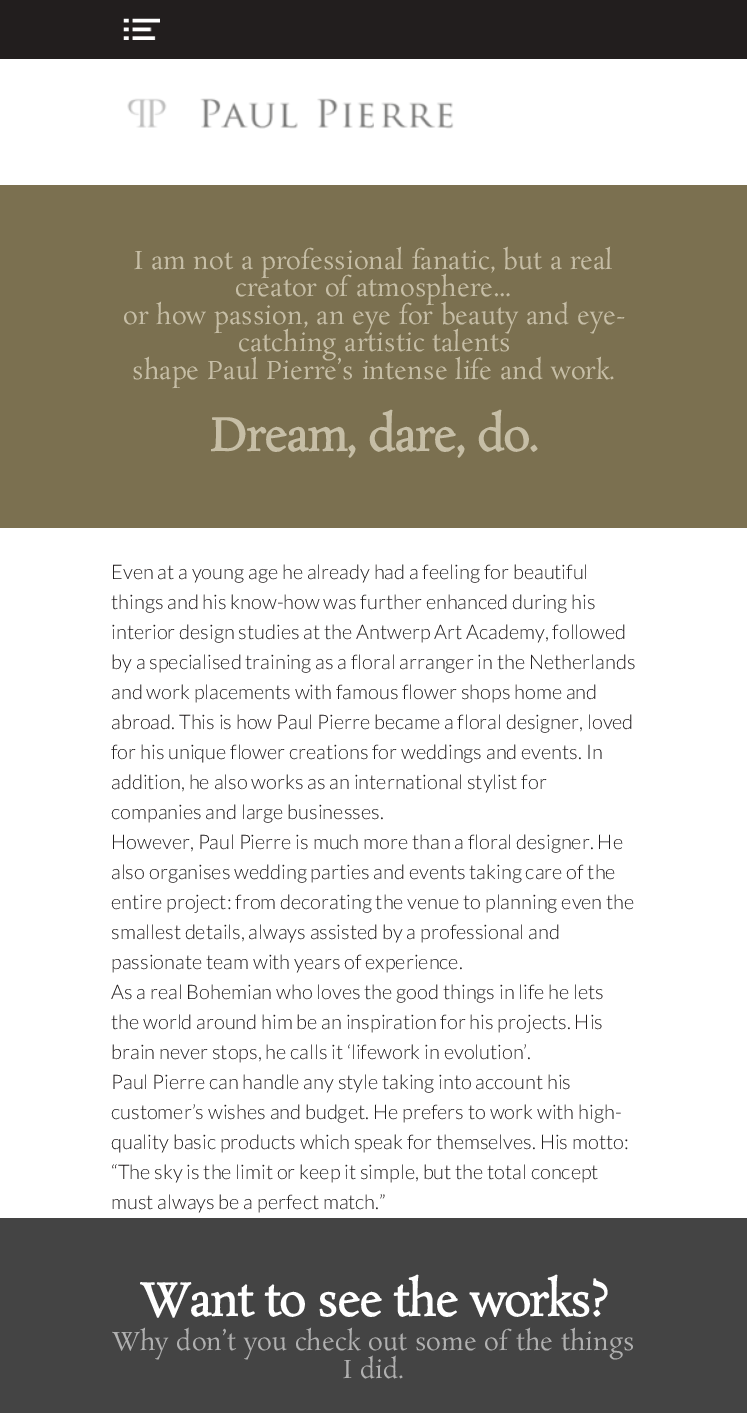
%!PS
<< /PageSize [747 1413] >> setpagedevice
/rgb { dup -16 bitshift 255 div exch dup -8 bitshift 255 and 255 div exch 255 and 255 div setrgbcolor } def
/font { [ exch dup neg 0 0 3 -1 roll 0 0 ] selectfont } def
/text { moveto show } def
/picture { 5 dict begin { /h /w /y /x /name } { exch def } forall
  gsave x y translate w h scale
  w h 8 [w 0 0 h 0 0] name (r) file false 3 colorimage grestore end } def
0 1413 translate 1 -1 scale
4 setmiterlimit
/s1 { /Rosarivo-Regular 25 font 16#C6BEA6 rgb } def
/s2 { /Lato-Light 20 font 16#221E1E rgb } def
/s3 { /Rosarivo-Regular 25 font 16#B0B0B0 rgb } def
16#FFFFFF rgb
0 0 747 1413 rectfill
16#221E1E rgb
0 0 747 59 rectfill
(pic1.raw) 123 18 37 22 picture
(pic2.raw) 127 98 327 31 picture
16#7B7050 rgb
0 185 747 343 rectfill
s1
(I am not a professional fanatic, but a real) 134 269 text
(creator of atmosphere…) 235 296 text
(or how passion, an eye for beauty and eye-) 123 324 text
(catching artistic talents) 238 351 text
(shape Paul Pierre’s intense life and work.) 132 379 text
/Rosarivo-Bold 45 font
210 451 moveto -1.25 0 (Dream, dare, do.) ashow
s2
(Even at a young age he already had a feeling for beautiful) 111 579 text
(things and his know-how was further enhanced during his) 111 609 text
(interior design studies at the Antwerp Art Academy, followed) 111 639 text
(by a specialised training as a floral arranger in the Netherlands) 111 669 text
(and work placements with famous flower shops home and) 111 699 text
(abroad. This is how Paul Pierre became a floral designer, loved) 111 729 text
(for his unique flower creations for weddings and events. In) 111 759 text
(addition, he also works as an international stylist for) 111 789 text
(companies and large businesses.) 111 819 text
(However, Paul Pierre is much more than a floral designer. He) 111 849 text
(also organises wedding parties and events taking care of the) 111 879 text
(entire project: from decorating the venue to planning even the) 111 909 text
(smallest details, always assisted by a professional and) 111 939 text
(passionate team with years of experience.) 111 969 text
(As a real Bohemian who loves the good things in life he lets) 111 999 text
(the world around him be an inspiration for his projects. His) 111 1029 text
(brain never stops, he calls it ‘lifework in evolution’.) 111 1059 text
(Paul Pierre can handle any style taking into account his) 111 1089 text
(customer’s wishes and budget. He prefers to work with high-) 111 1119 text
(quality basic products which speak for themselves. His motto:) 111 1149 text
(“The sky is the limit or keep it simple, but the total concept) 111 1179 text
(must always be a perfect match.”) 111 1209 text
16#444444 rgb
0 1218 747 195 rectfill
/Rosarivo-Bold 45 font
16#FFFFFF rgb
140 1316 moveto -1.25 0 (Want to see the works?) ashow
s3
(Why don’t you check out some of the things) 112 1350 text
(I did.) 343 1378 text
showpage
